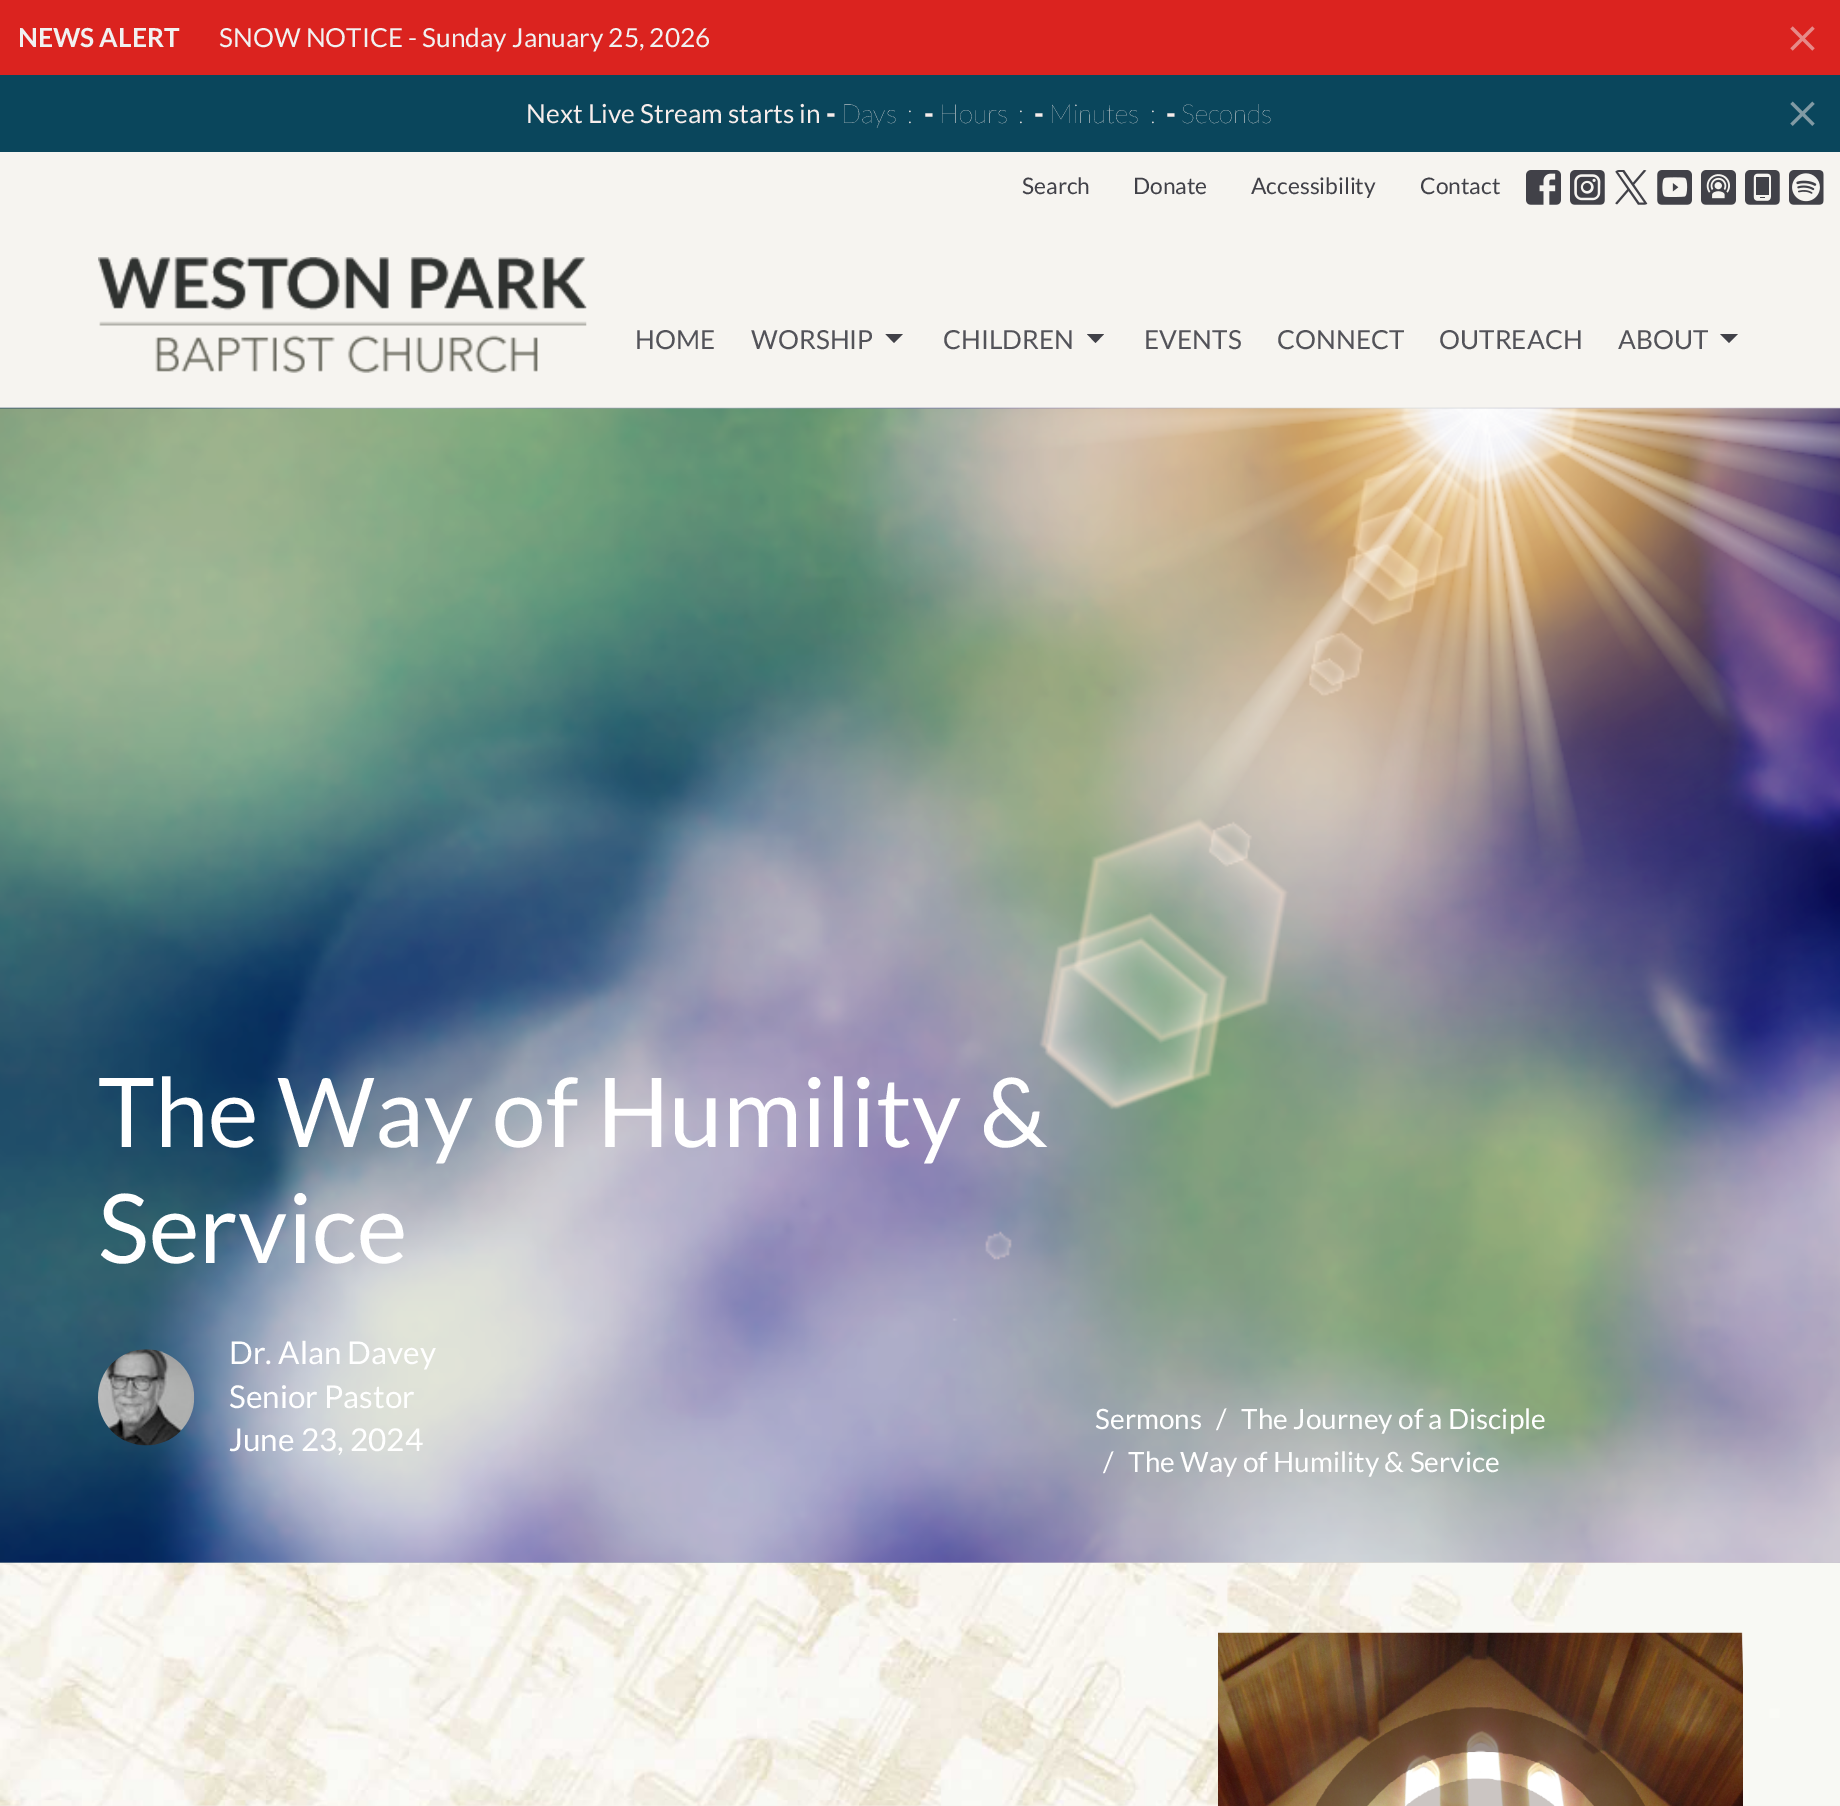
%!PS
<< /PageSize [1840 1806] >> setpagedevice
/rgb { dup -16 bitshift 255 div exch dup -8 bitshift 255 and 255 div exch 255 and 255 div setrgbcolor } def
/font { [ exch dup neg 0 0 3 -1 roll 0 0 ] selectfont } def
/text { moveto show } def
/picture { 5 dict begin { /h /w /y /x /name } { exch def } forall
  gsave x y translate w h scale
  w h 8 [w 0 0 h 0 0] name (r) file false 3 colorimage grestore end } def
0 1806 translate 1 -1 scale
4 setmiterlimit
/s1 { /Lato-Bold 26.25 font 16#F1F1F1 rgb } def
/s2 { /Lato-Regular 26.25 font 16#F1F1F1 rgb } def
/s3 { /Lato-Regular 26.25 font 16#F7EDEB rgb } def
/s4 { /Lato-Black 26.25 font 16#F7EDEB rgb } def
/s5 { /Lato-Thin 26.25 font 16#F7EDEB rgb } def
/s6 { /Lato-Regular 22.75 font 16#414148 rgb } def
/s7 { /Lato-Regular 26.25 font 16#535359 rgb } def
/s8 { /Lato-Regular 96.25 font 16#FFFFFF rgb } def
/s9 { /Lato-Regular 31.5 font 16#FFFFFF rgb } def
/s10 { /Lato-Regular 28 font 16#FFFFFF rgb } def
16#FFFFFF rgb
0 0 1840 1806 rectfill
(pic1.raw) 0 1562 1840 244 picture
16#DB231F rgb
0 0 1840 75 rectfill
s1
(NEWS ALERT) 18 47 text
s2
(SNOW NOTICE - Sunday January 25, 2026) 219 47 text
(pic2.raw) 1790 26 25 25 picture
16#0A465C rgb
0 75 1840 77 rectfill
s3
(Next Live Stream starts in) 526 123 text
s4
(-) 826 123 text
s5
(Days) 841 123 text
(:) 907 123 text
s4
(-) 924 123 text
s5
(Hours) 939 123 text
(:) 1018 123 text
s4
(-) 1034 123 text
s5
(Minutes) 1049 123 text
(:) 1150 123 text
s4
(-) 1166 123 text
s5
(Seconds) 1181 123 text
(pic3.raw) 1790 101 25 25 picture
16#F6F4F0 rgb
0 152 1840 256 rectfill
s6
(Search) 1022 194 text
(Donate) 1133 194 text
(Accessibility) 1251 194 text
(Contact) 1420 194 text
(pic4.raw) 1526 170 35 35 picture
(pic5.raw) 1570 170 35 35 picture
(pic6.raw) 1615 170 33 35 picture
(pic7.raw) 1657 170 35 35 picture
(pic8.raw) 1701 170 35 35 picture
(pic9.raw) 1745 170 35 35 picture
(pic10.raw) 1789 170 35 35 picture
(pic11.raw) 98 257 489 116 picture
s7
(HOME) 635 349 text
(WORSHIP) 751 349 text
16#414148 rgb
885.5 334 moveto 894 343 lineto 903 334 lineto closepath fill
s7
(CHILDREN) 943 349 text
16#414148 rgb
1087 334 moveto 1095.5 343 lineto 1104 334 lineto closepath fill
s7
(EVENTS) 1144 349 text
(CONNECT) 1277 349 text
(OUTREACH) 1439 349 text
(ABOUT) 1618 349 text
16#414148 rgb
1720 334 moveto 1729 343 lineto 1738 334 lineto closepath fill
(pic12.raw) 0 407 1840 1156 picture
s8
(The Way of Humility &) 98 1147 text
(Service) 98 1263 text
(pic13.raw) 98 1349 97 97 picture
s9
(Dr. Alan Davey) 229 1364 text
(Senior Pastor) 229 1408 text
(June 23, 2024) 229 1451 text
s10
(Sermons) 1095 1429 text
(/) 1216 1429 text
(The Journey of a Disciple) 1241 1429 text
(/) 1103 1472 text
(The Way of Humility & Service) 1128 1472 text
(pic14.raw) 1218 1632 525 174 picture
showpage
